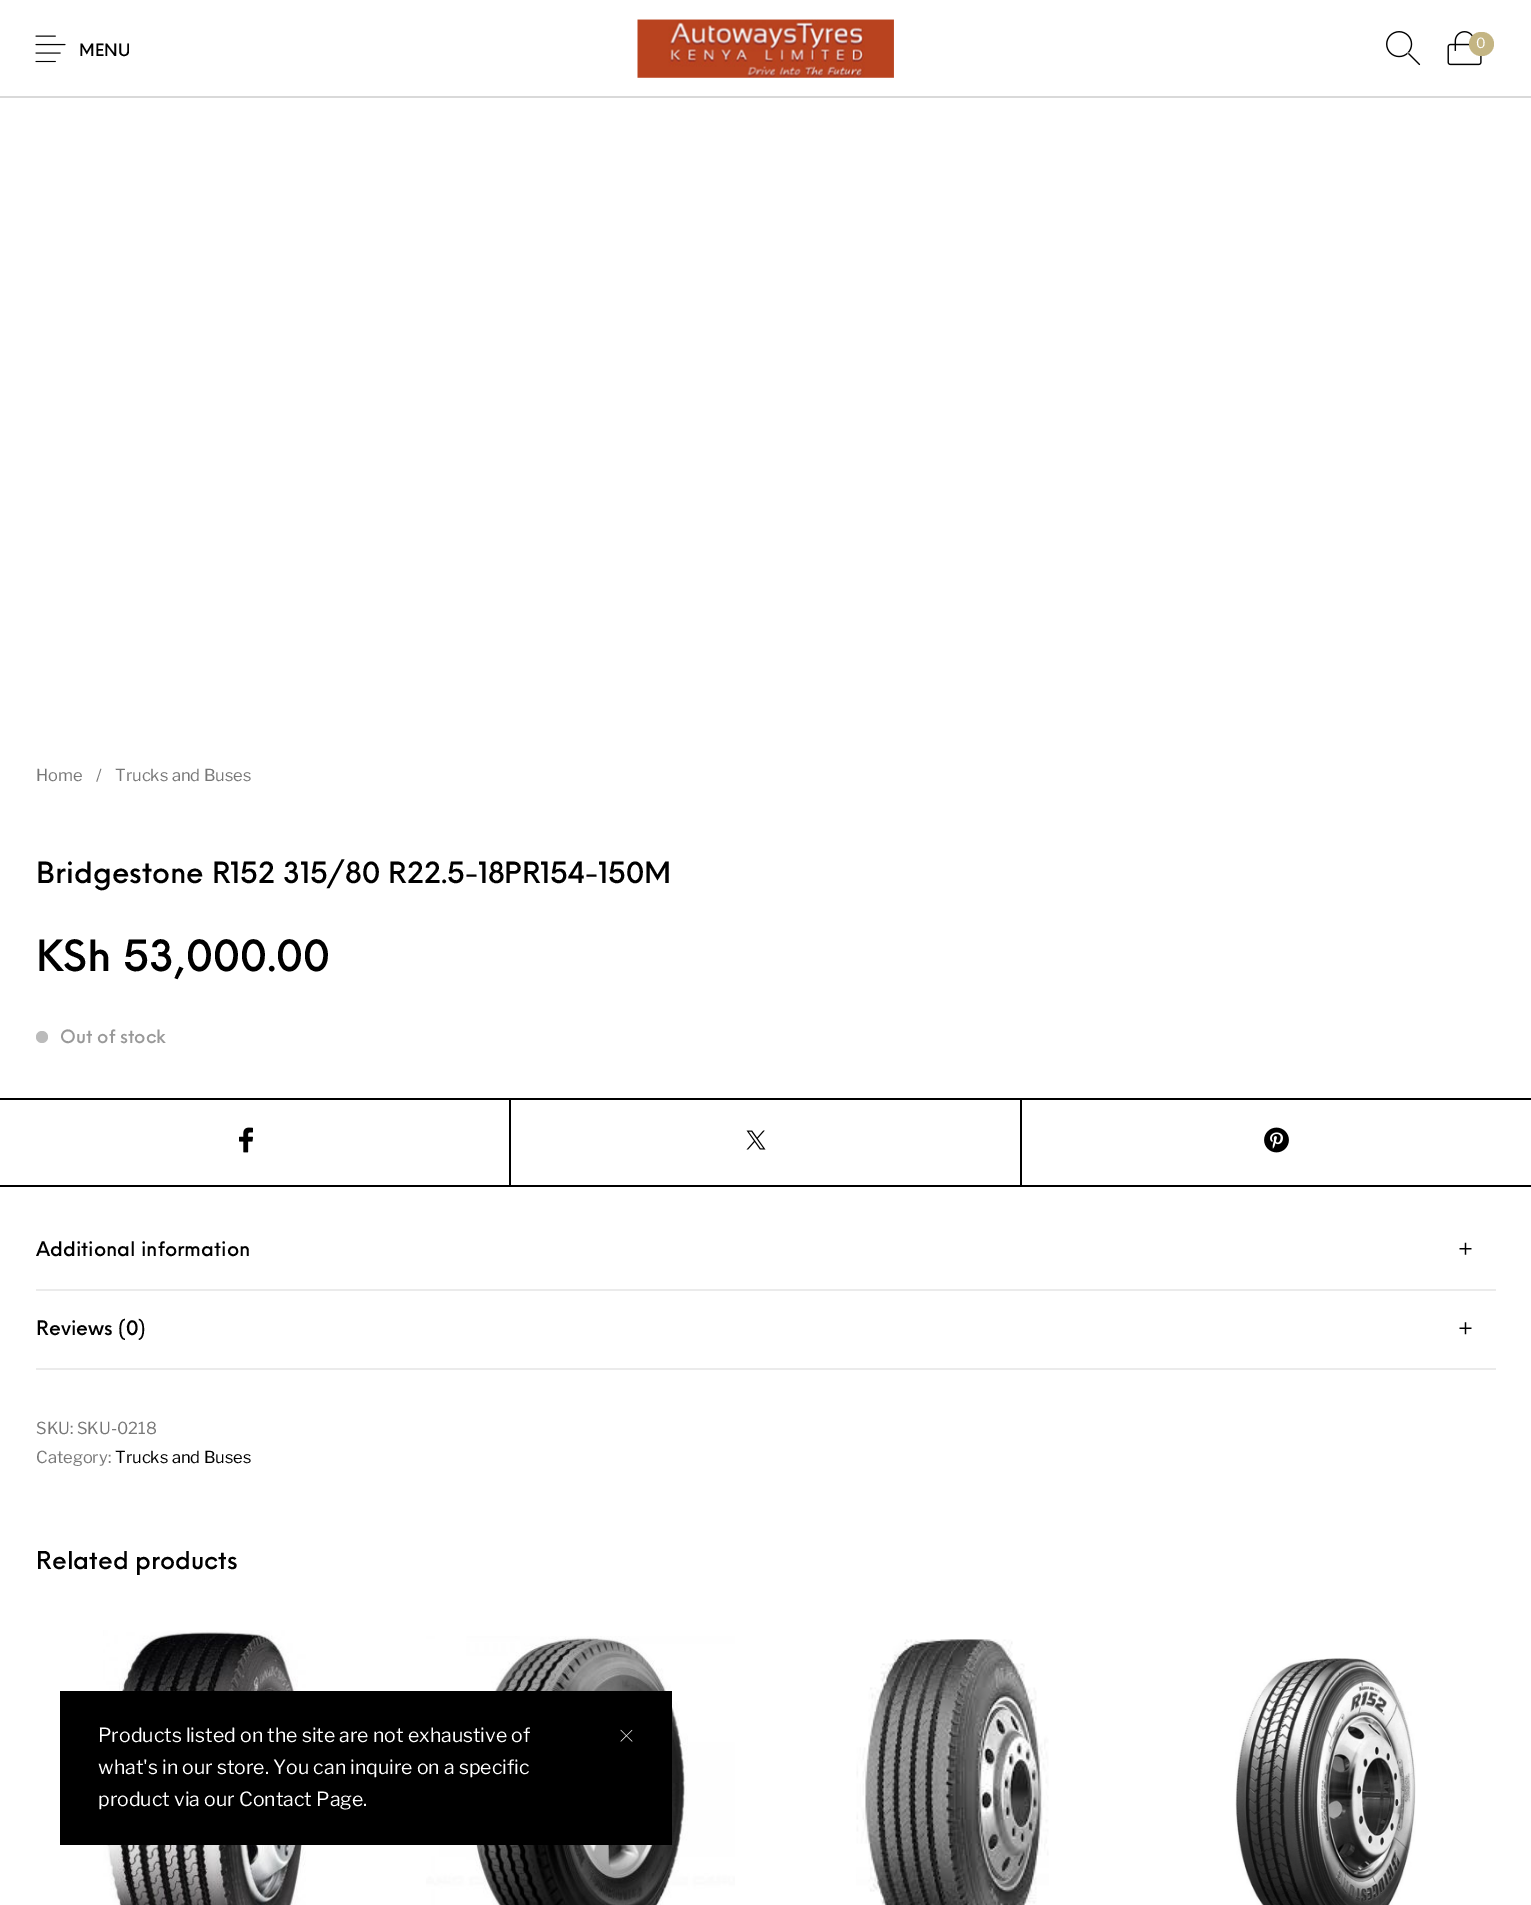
%!PS
<< /PageSize [1531 1905] >> setpagedevice
/rgb { dup -16 bitshift 255 div exch dup -8 bitshift 255 and 255 div exch 255 and 255 div setrgbcolor } def
/font { [ exch dup neg 0 0 3 -1 roll 0 0 ] selectfont } def
/text { moveto show } def
/circle { newpath 0 360 arc closepath } def
/roundrect { 5 dict begin { /r /h /w /y /x } { exch def } forall
  x r add y moveto x w add y 2 copy h add r arct x w add y h add x 1 index r arct
  x y h add x y r arct x y 2 copy exch w add exch r arct closepath end } def
/picture { 5 dict begin { /h /w /y /x /name } { exch def } forall
  gsave x y translate w h scale
  w h 8 [w 0 0 h 0 0] name (r) file false 3 colorimage grestore end } def
0 1905 translate 1 -1 scale
4 setmiterlimit
/s1 { /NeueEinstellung-Medium 16.5 font 16#000000 rgb } def
/s2 { /LibreFranklin-Regular 14 font 16#FFFFFF rgb } def
/s3 { /LibreFranklin-Regular 16.5 font 16#777777 rgb } def
/s4 { /NeueEinstellung-Medium 28.5 font 16#000000 rgb } def
/s5 { /NeueEinstellung-Medium 42 font 16#000000 rgb } def
/s6 { /NeueEinstellung-Medium 18 font 16#999999 rgb } def
/s7 { /NeueEinstellung-Medium 19.5 font 16#000000 rgb } def
/s8 { /LibreFranklin-Regular 16.5 font 16#000000 rgb } def
/s9 { /NeueEinstellung-Medium 24 font 16#000000 rgb } def
/s10 { /LibreFranklin-Regular 19.5 font 16#FFFFFF rgb } def
16#FFFFFF rgb
0 0 1531 1905 rectfill
16#D9D9D9 rgb
0 96 1531 2 rectfill
(pic1.raw) 35 35 31 28 picture
s1
(MENU) 79 56 text
(pic2.raw) 637 19 257 59 picture
(pic3.raw) 1386 31 35 35 picture
(pic4.raw) 1447 31 35 35 picture
16#C4B583 rgb
1469 32 25 24 12 roundrect fill
s2
(0) 1476 48 text
s3
(Home) 36 781 text
(/) 96 781 text
(Trucks and Buses) 115 781 text
s4
(Bridgestone R152 315/80 R22.5-18PR154-150M) 36 883 text
s5
(KSh 53,000.00) 36 971 text
16#BBBBBB rgb
42 1037 6 circle fill
s6
(Out of stock) 60 1043 text
16#000000 rgb
0 1098 510 2 rectfill
509 1098 2 89 rectfill
0 1185 510 2 rectfill
(pic5.raw) 239 1127 14 26 picture
510 1098 1021 2 rectfill
1020 1098 2 89 rectfill
510 1185 1021 2 rectfill
(pic6.raw) 746 1130 20 20 picture
(pic7.raw) 1264 1127 25 26 picture
16#EBEBEB rgb
36 1289 1460 2 rectfill
s7
(Additional information) 36 1256 text
(pic8.raw) 1459 1242 13 13 picture
16#EBEBEB rgb
36 1368 1460 2 rectfill
s7
(Reviews \(0\)) 36 1335 text
(pic9.raw) 1459 1322 13 13 picture
s3
(SKU: SKU-0218) 36 1434 text
(Category:) 36 1463 text
s8
(Trucks and Buses) 115 1463 text
s9
(Related products) 36 1569 text
(pic10.raw) 103 1630 203 275 picture
(pic11.raw) 426 1636 309 269 picture
(pic12.raw) 856 1639 193 266 picture
(pic13.raw) 1235 1658 181 247 picture
60 1691 612 154 rectfill
s10
(Products listed on the site are not exhaustive of) 98 1742 text
(pic14.raw) 620 1729 13 13 picture
(what's in our store. You can inquire on a specific) 98 1774 text
(product via our Contact Page.) 98 1806 text
showpage
